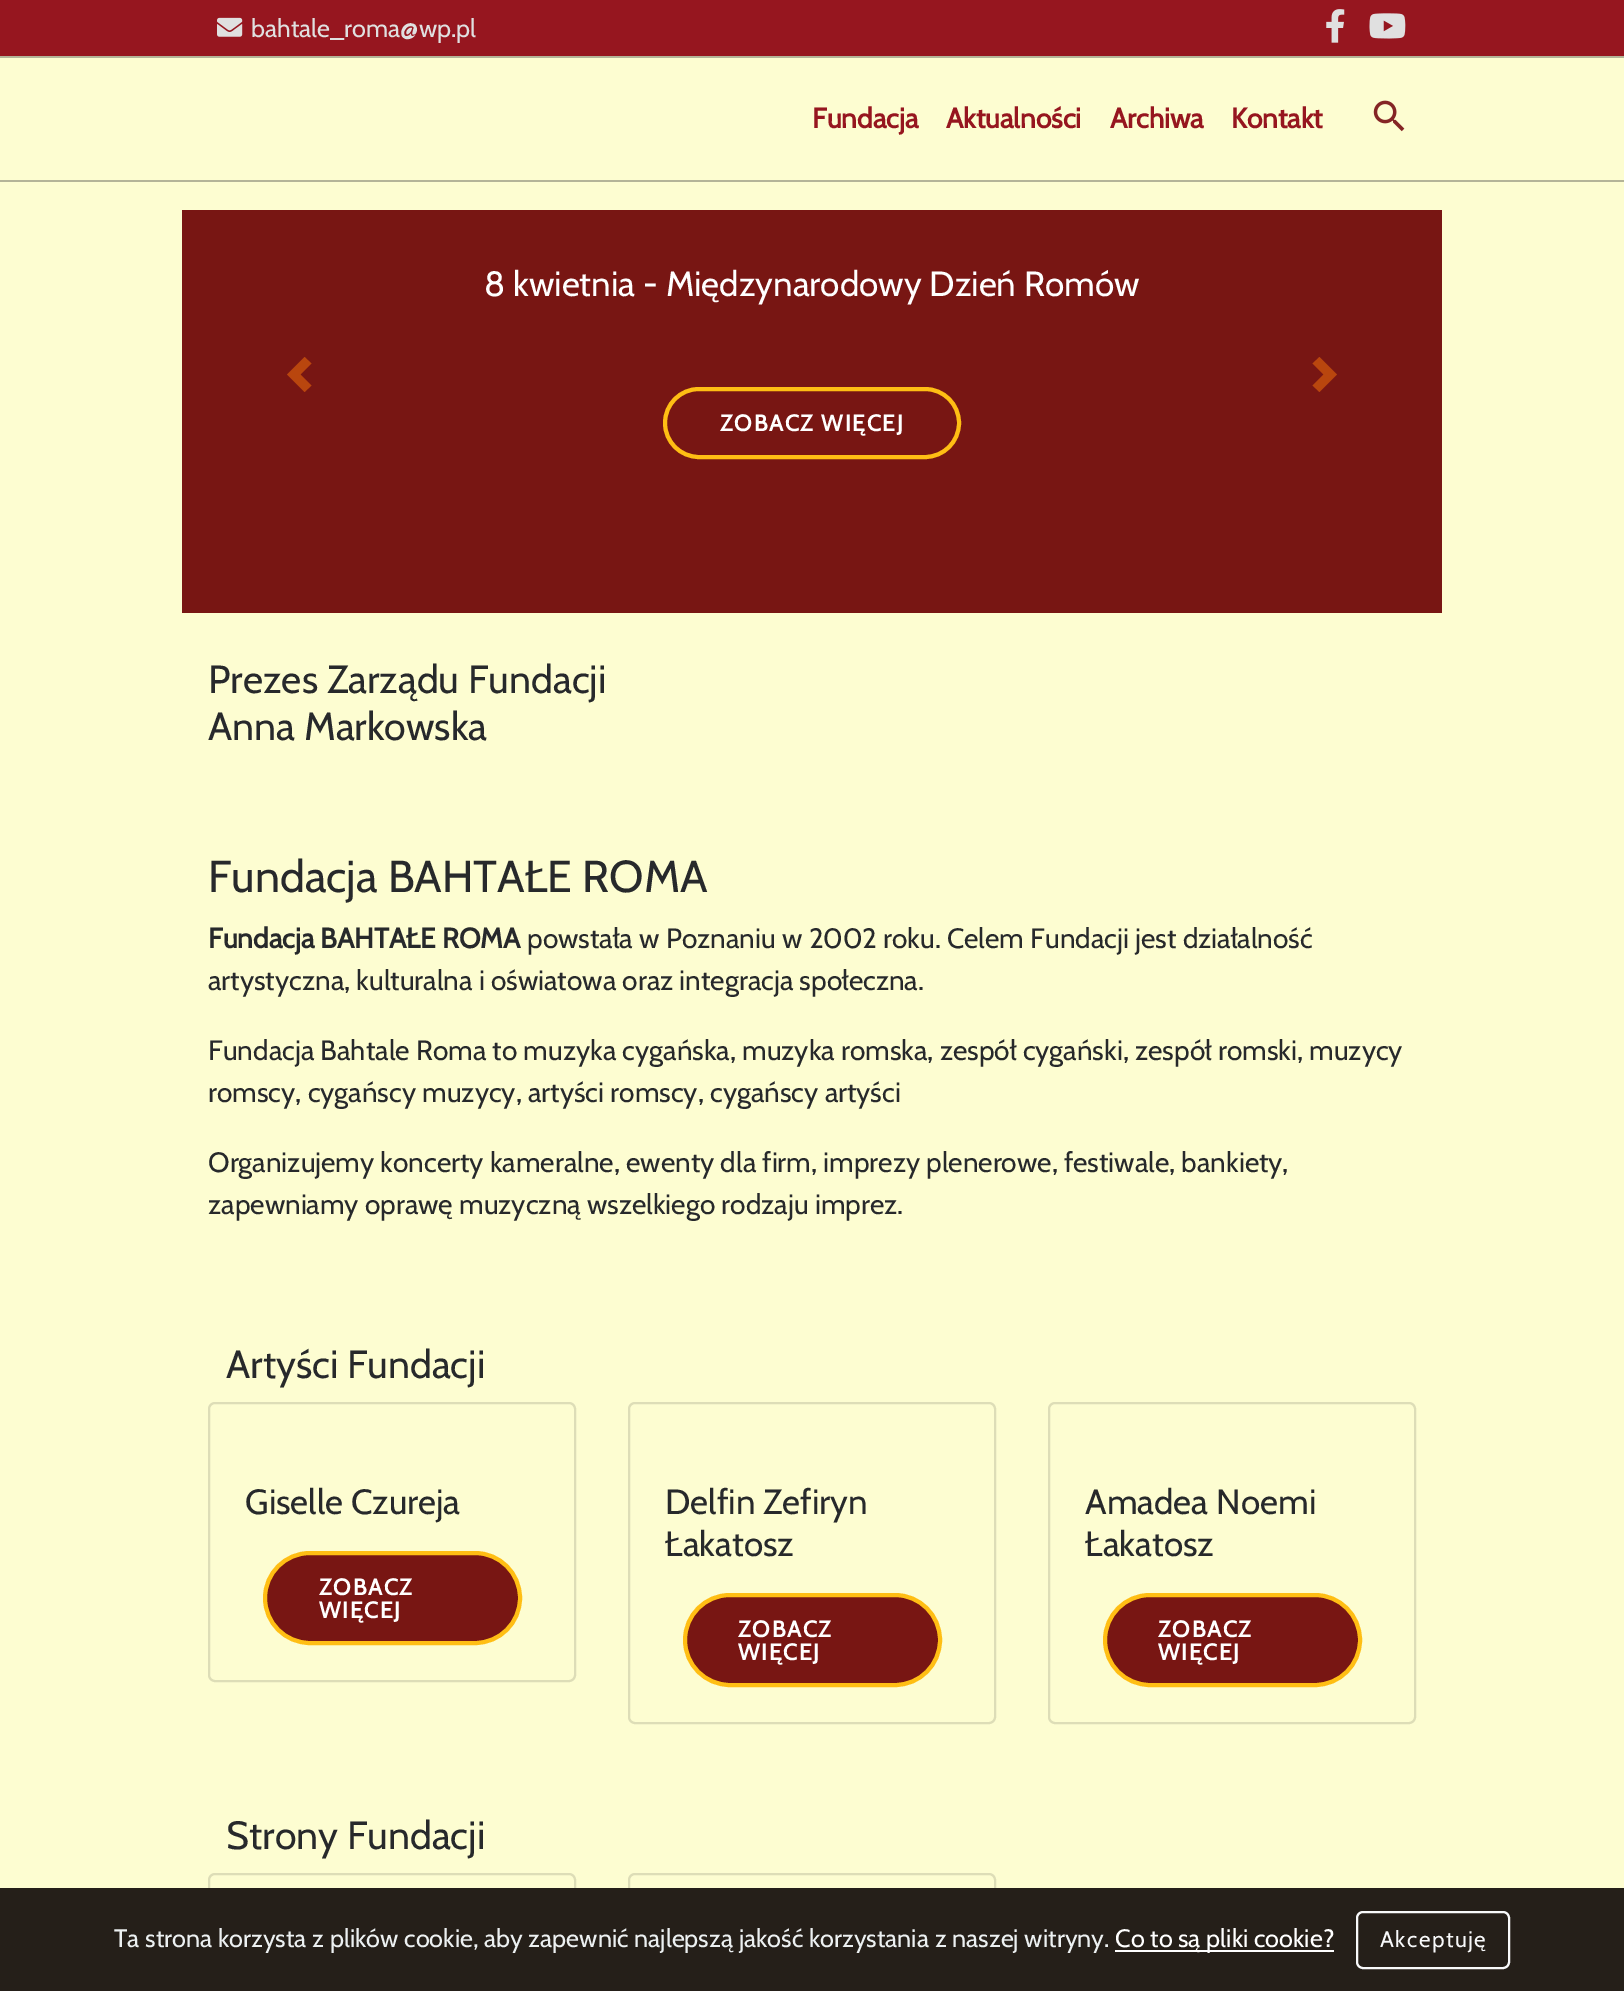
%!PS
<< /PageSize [1624 1991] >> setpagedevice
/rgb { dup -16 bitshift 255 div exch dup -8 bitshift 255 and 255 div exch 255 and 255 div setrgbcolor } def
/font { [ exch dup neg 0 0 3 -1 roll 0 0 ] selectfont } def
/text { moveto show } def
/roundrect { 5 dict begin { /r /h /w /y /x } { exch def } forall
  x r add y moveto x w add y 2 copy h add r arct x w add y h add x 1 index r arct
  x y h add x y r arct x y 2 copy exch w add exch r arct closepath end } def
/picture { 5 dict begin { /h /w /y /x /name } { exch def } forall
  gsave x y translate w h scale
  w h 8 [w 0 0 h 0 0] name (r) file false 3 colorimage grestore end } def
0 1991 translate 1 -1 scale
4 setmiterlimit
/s1 { /Cabin-Regular 25.2 font 16#E0E0E0 rgb } def
/s2 { /Cabin-Bold 28 font 16#96161F rgb } def
/s3 { /Cabin-Regular 35 font 16#FFFFFF rgb } def
/s4 { /Cabin-Regular 39.25 font 16#27292B rgb } def
/s5 { /Cabin-Regular 44.75 font 16#27292B rgb } def
/s6 { /Cabin-Bold 28 font 16#27292B rgb } def
/s7 { /Cabin-Regular 28 font 16#27292B rgb } def
/s8 { /Cabin-Regular 35 font 16#27292B rgb } def
/s9 { /Cabin-Regular 25.2 font 16#ECF0F1 rgb } def
/s10 { /Cabin-Regular 25.2 font 16#FFFFFF rgb } def
16#FDFDD1 rgb
0 0 1624 1991 rectfill
16#96161F rgb
0 0 1624 56 rectfill
16#B4B498 rgb
0 56 1624 2 rectfill
(pic1.raw) 217 17 26 20 picture
s1
(bahtale_roma@wp.pl) 251 37 text
(pic2.raw) 1326 9 19 34 picture
(pic3.raw) 1369 13 37 26 picture
16#B4B498 rgb
0 180 1624 2 rectfill
s2
(Fundacja) 812 128 text
(Aktualności) 946 128 text
(Archiwa) 1110 128 text
(Kontakt) 1231 128 text
(pic4.raw) 1373 100 32 32 picture
16#781613 rgb
182 210 1260 403 rectfill
16#B9460E rgb
304.5 357 moveto 287 374.5 lineto 304.5 392 lineto 311.5 385.5 lineto 300.5 374.5 lineto 311.5 363.5 lineto closepath fill
s3
(8 kwietnia - Międzynarodowy Dzień Romów) 484 296 text
16#FFBE14 rgb
4 setlinewidth
665 389 294 68 34 roundrect stroke
/Cabin-Bold 22.75 font
16#FFFFFF rgb
720 431 moveto 1.75 0 (ZOBACZ WIĘCEJ) ashow
16#B9460E rgb
1319.5 357 moveto 1312.5 363.5 lineto 1323.5 374.5 lineto 1312.5 385.5 lineto 1319.5 392 lineto 1337 374.5 lineto closepath fill
s4
(Prezes Zarządu Fundacji) 208 693 text
(Anna Markowska) 208 740 text
s5
(Fundacja BAHTAŁE ROMA) 208 892 text
s6
(Fundacja BAHTAŁE ROMA) 208 948 text
s7
(powstała w Poznaniu w 2002 roku. Celem Fundacji jest działalność) 527 948 text
(artystyczna, kulturalna i oświatowa oraz integracja społeczna.) 208 990 text
(Fundacja Bahtale Roma to muzyka cygańska, muzyka romska, zespół cygański, zespół romski, muzycy) 208 1060 text
(romscy, cygańscy muzycy, artyści romscy, cygańscy artyści) 208 1102 text
(Organizujemy koncerty kameralne, ewenty dla firm, imprezy plenerowe, festiwale, bankiety,) 208 1172 text
(zapewniamy oprawę muzyczną wszelkiego rodzaju imprez.) 208 1214 text
s4
(Artyści Fundacji) 226 1378 text
16#DDDDB7 rgb
2 setlinewidth
209 1403 366 278 6 roundrect stroke
s8
(Giselle Czureja) 245 1514 text
16#781613 rgb
265 1553 255 90 45 roundrect gsave fill grestore
16#FFBE14 rgb
4 setlinewidth
stroke
/Cabin-Bold 22.75 font
16#FFFFFF rgb
319 1595 moveto 1.75 0 (ZOBACZ) ashow
319 1618 moveto 1.75 0 (WIĘCEJ) ashow
16#DDDDB7 rgb
2 setlinewidth
629 1403 366 320 6 roundrect stroke
s8
(Delfin Zefiryn) 665 1514 text
(Łakatosz) 665 1556 text
16#781613 rgb
685 1595 255 90 45 roundrect gsave fill grestore
16#FFBE14 rgb
4 setlinewidth
stroke
/Cabin-Bold 22.75 font
16#FFFFFF rgb
738 1637 moveto 1.75 0 (ZOBACZ) ashow
738 1660 moveto 1.75 0 (WIĘCEJ) ashow
16#DDDDB7 rgb
2 setlinewidth
1049 1403 366 320 6 roundrect stroke
s8
(Amadea Noemi) 1085 1514 text
(Łakatosz) 1085 1556 text
16#781613 rgb
1105 1595 255 90 45 roundrect gsave fill grestore
16#FFBE14 rgb
4 setlinewidth
stroke
/Cabin-Bold 22.75 font
16#FFFFFF rgb
1158 1637 moveto 1.75 0 (ZOBACZ) ashow
1158 1660 moveto 1.75 0 (WIĘCEJ) ashow
s4
(Strony Fundacji) 226 1849 text
16#DDDDB7 rgb
2 setlinewidth
209 1874 366 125 6 roundrect stroke
629 1874 366 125 6 roundrect stroke
16#251F19 rgb
0 1888 1624 103 rectfill
s9
(Ta strona korzysta z plików cookie, aby zapewnić najlepszą jakość korzystania z naszej witryny.) 114 1947 text
16#FFFFFF rgb
1115 1950 219 2 rectfill
(Co to są pliki cookie?) 1115 1947 text
16#F8F9FA rgb
1357 1912 152 56 6 roundrect stroke
/Cabin-Regular 22.5 font
1380 1947 moveto 1.5 0 (Akceptuję) ashow
showpage
